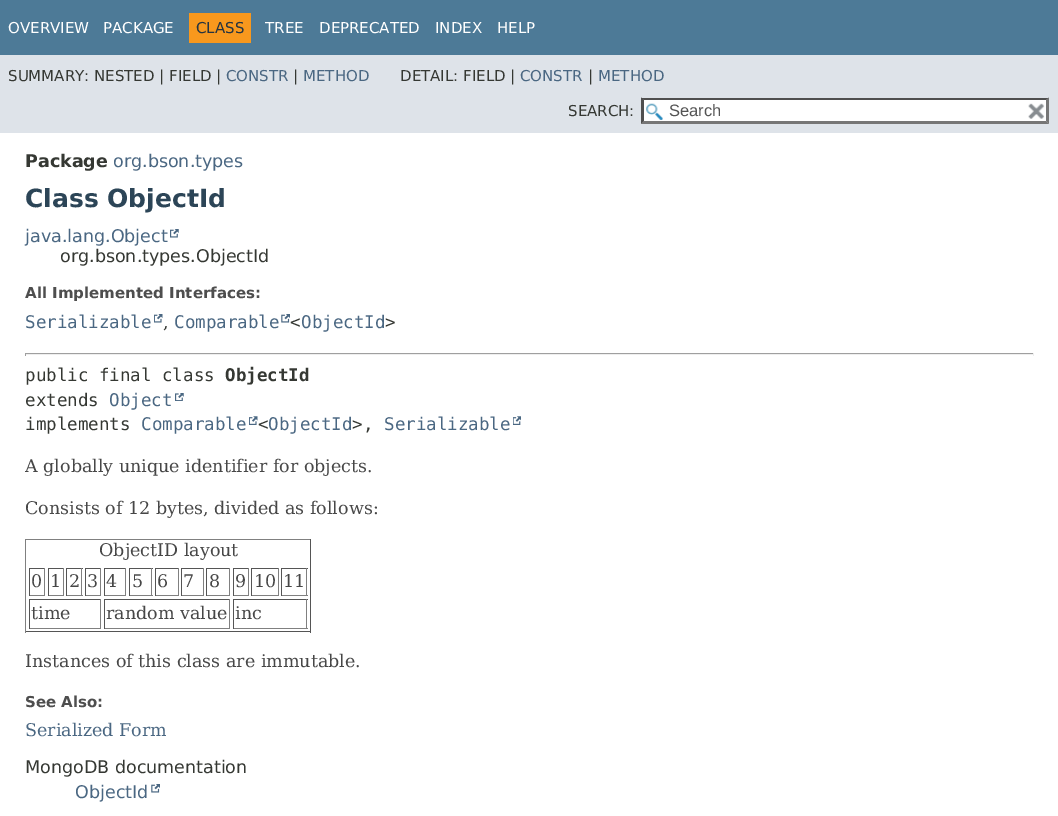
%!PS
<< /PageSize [1058 816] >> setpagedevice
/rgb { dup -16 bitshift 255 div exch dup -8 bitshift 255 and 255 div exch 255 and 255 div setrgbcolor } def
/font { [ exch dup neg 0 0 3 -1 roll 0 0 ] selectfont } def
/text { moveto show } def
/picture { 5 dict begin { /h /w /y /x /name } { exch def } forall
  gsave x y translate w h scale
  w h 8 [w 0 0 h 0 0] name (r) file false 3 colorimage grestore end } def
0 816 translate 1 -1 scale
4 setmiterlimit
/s1 { /DejaVuSans-Regular 15 font 16#FFFFFF rgb } def
/s2 { /DejaVuSans-Regular 15 font 16#253441 rgb } def
/s3 { /DejaVuSans-Regular 15 font 16#353833 rgb } def
/s4 { /DejaVuSans-Regular 15 font 16#4A6782 rgb } def
/s5 { /LiberationSans-Regular 16.5 font 16#545454 rgb } def
/s6 { /DejaVuSans-Bold 17.5 font 16#353833 rgb } def
/s7 { /DejaVuSans-Regular 17.5 font 16#4A6782 rgb } def
/s8 { /DejaVuSans-Bold 25 font 16#2C4557 rgb } def
/s9 { /DejaVuSans-Regular 17.5 font 16#353833 rgb } def
/s10 { /DejaVuSans-Bold 15 font 16#4E4E4E rgb } def
/s11 { /DejaVuSansMono-Regular 17.5 font 16#4A6782 rgb } def
/s12 { /DejaVuSerif-Regular 17.5 font 16#353833 rgb } def
/s13 { /DejaVuSansMono-Regular 17.5 font 16#353833 rgb } def
/s14 { /DejaVuSansMono-Bold 17.5 font 16#353833 rgb } def
/s15 { /DejaVuSerif-Regular 17.5 font 16#474747 rgb } def
/s16 { /DejaVuSerif-Regular 17.5 font 16#4A6782 rgb } def
16#FFFFFF rgb
0 0 1058 816 rectfill
16#4D7A97 rgb
0 0 1058 55 rectfill
s1
(OVERVIEW) 8 33 text
(PACKAGE) 103 33 text
16#F8981D rgb
189 13 62 30 rectfill
s2
(CLASS) 196 33 text
s1
(TREE) 265 33 text
(DEPRECATED) 319 33 text
(INDEX) 435 33 text
(HELP) 497 33 text
16#DEE3E9 rgb
0 55 1058 78 rectfill
s3
(SUMMARY: NESTED | FIELD |) 8 81 text
s4
(CONSTR) 226 81 text
s3
(|) 293 81 text
s4
(METHOD) 303 81 text
s3
(DETAIL: FIELD |) 400 81 text
s4
(CONSTR) 520 81 text
s3
(|) 588 81 text
s4
(METHOD) 598 81 text
s3
(SEARCH:) 568 116 text
16#FFFFFF rgb
641 98 408 26 rectfill
(pic1.raw) 646 103 17 17 picture
16#4F4F4F rgb
641 98 moveto 1049 98 lineto 1046 100 lineto 644 100 lineto closepath fill
16#767676 rgb
1049 97.5 moveto 1049 124 lineto 1046 121 lineto 1046 100 lineto closepath fill
1049 124 moveto 641 124 lineto 644 121 lineto 1046 121 lineto closepath fill
16#4F4F4F rgb
641 124 moveto 641 97.5 lineto 644 100 lineto 644 121 lineto closepath fill
s5
(Search) 669 116 text
(pic2.raw) 1028 103 17 16 picture
s6
(Package) 25 167 text
s7
(org.bson.types) 113 167 text
s8
(Class ObjectId) 25 207 text
s7
(java.lang.Object) 25 242 text
(pic3.raw) 170 229 9 9 picture
s9
(org.bson.types.ObjectId) 60 262 text
s10
(All Implemented Interfaces:) 25 298 text
s11
(Serializable) 25 328 text
(pic4.raw) 154 314 9 9 picture
s12
(,) 163 328 text
s11
(Comparable) 174 328 text
(pic5.raw) 281 314 9 9 picture
s13
(<) 290 328 text
s11
(ObjectId) 301 328 text
s13
(>) 385 328 text
16#9F9F9F rgb
25 353 1009 1 rectfill
16#EEEEEE rgb
1033 353 1 3 rectfill
25 354 1009 1 rectfill
16#9F9F9F rgb
25 353 1 3 rectfill
s13
(public final class) 25 381 text
s14
(ObjectId) 225 381 text
s13
(extends) 25 406 text
s11
(Object) 109 406 text
(pic6.raw) 175 393 9 8 picture
s13
(implements) 25 430 text
s11
(Comparable) 141 430 text
(pic7.raw) 249 416 9 9 picture
s13
(<) 258 430 text
s11
(ObjectId) 268 430 text
s13
(>,) 352 430 text
s11
(Serializable) 384 430 text
(pic8.raw) 513 416 8 9 picture
s15
(A globally unique identifier for objects.) 25 472 text
(Consists of 12 bytes, divided as follows:) 25 514 text
16#808080 rgb
25 539 286 1 rectfill
16#555555 rgb
310 539 1 94 rectfill
25 631 286 1 rectfill
16#808080 rgb
25 539 1 94 rectfill
s15
(ObjectID layout) 99 556 text
16#555555 rgb
29 568 16 1 rectfill
16#808080 rgb
44 568 1 28 rectfill
29 595 16 1 rectfill
16#555555 rgb
29 568 1 28 rectfill
s15
(0) 31 587 text
16#555555 rgb
48 568 16 1 rectfill
16#808080 rgb
63 568 1 28 rectfill
48 595 16 1 rectfill
16#555555 rgb
48 568 1 28 rectfill
s15
(1) 50 587 text
16#555555 rgb
66 568 17 1 rectfill
16#808080 rgb
81 568 1 28 rectfill
66 595 17 1 rectfill
16#555555 rgb
66 568 1 28 rectfill
s15
(2) 69 587 text
16#555555 rgb
85 568 16 1 rectfill
16#808080 rgb
100 568 1 28 rectfill
85 595 16 1 rectfill
16#555555 rgb
85 568 1 28 rectfill
s15
(3) 87 587 text
16#555555 rgb
104 568 22 1 rectfill
16#808080 rgb
125 568 1 28 rectfill
104 595 22 1 rectfill
16#555555 rgb
104 568 1 28 rectfill
s15
(4) 106 587 text
16#555555 rgb
129 568 24 1 rectfill
16#808080 rgb
151 568 1 28 rectfill
129 595 24 1 rectfill
16#555555 rgb
129 568 1 28 rectfill
s15
(5) 132 587 text
16#555555 rgb
155 568 24 1 rectfill
16#808080 rgb
178 568 1 28 rectfill
155 595 24 1 rectfill
16#555555 rgb
155 568 1 28 rectfill
s15
(6) 157 587 text
16#555555 rgb
181 568 23 1 rectfill
16#808080 rgb
203 568 1 28 rectfill
181 595 23 1 rectfill
16#555555 rgb
181 568 1 28 rectfill
s15
(7) 183 587 text
16#555555 rgb
206 568 24 1 rectfill
16#808080 rgb
229 568 1 28 rectfill
206 595 24 1 rectfill
16#555555 rgb
206 568 1 28 rectfill
s15
(8) 209 587 text
16#555555 rgb
233 568 16 1 rectfill
16#808080 rgb
248 568 1 28 rectfill
233 595 16 1 rectfill
16#555555 rgb
233 568 1 28 rectfill
s15
(9) 235 587 text
16#555555 rgb
251 568 28 1 rectfill
16#808080 rgb
278 568 1 28 rectfill
251 595 28 1 rectfill
16#555555 rgb
251 568 1 28 rectfill
s15
(10) 254 587 text
16#555555 rgb
281 568 27 1 rectfill
16#808080 rgb
306 568 1 28 rectfill
281 595 27 1 rectfill
16#555555 rgb
281 568 1 28 rectfill
s15
(11) 283 587 text
16#555555 rgb
29 599 72 1 rectfill
16#808080 rgb
100 599 1 30 rectfill
29 628 72 1 rectfill
16#555555 rgb
29 599 1 30 rectfill
s15
(time) 31 619 text
16#555555 rgb
104 599 126 1 rectfill
16#808080 rgb
229 599 1 30 rectfill
104 628 126 1 rectfill
16#555555 rgb
104 599 1 30 rectfill
s15
(random value) 106 619 text
16#555555 rgb
233 599 75 1 rectfill
16#808080 rgb
306 599 1 30 rectfill
233 628 75 1 rectfill
16#555555 rgb
233 599 1 30 rectfill
s15
(inc) 235 619 text
(Instances of this class are immutable.) 25 667 text
s10
(See Also:) 25 707 text
s16
(Serialized Form) 25 736 text
s9
(MongoDB documentation) 25 773 text
s7
(ObjectId) 75 798 text
(pic5.raw) 151 784 9 9 picture
showpage
